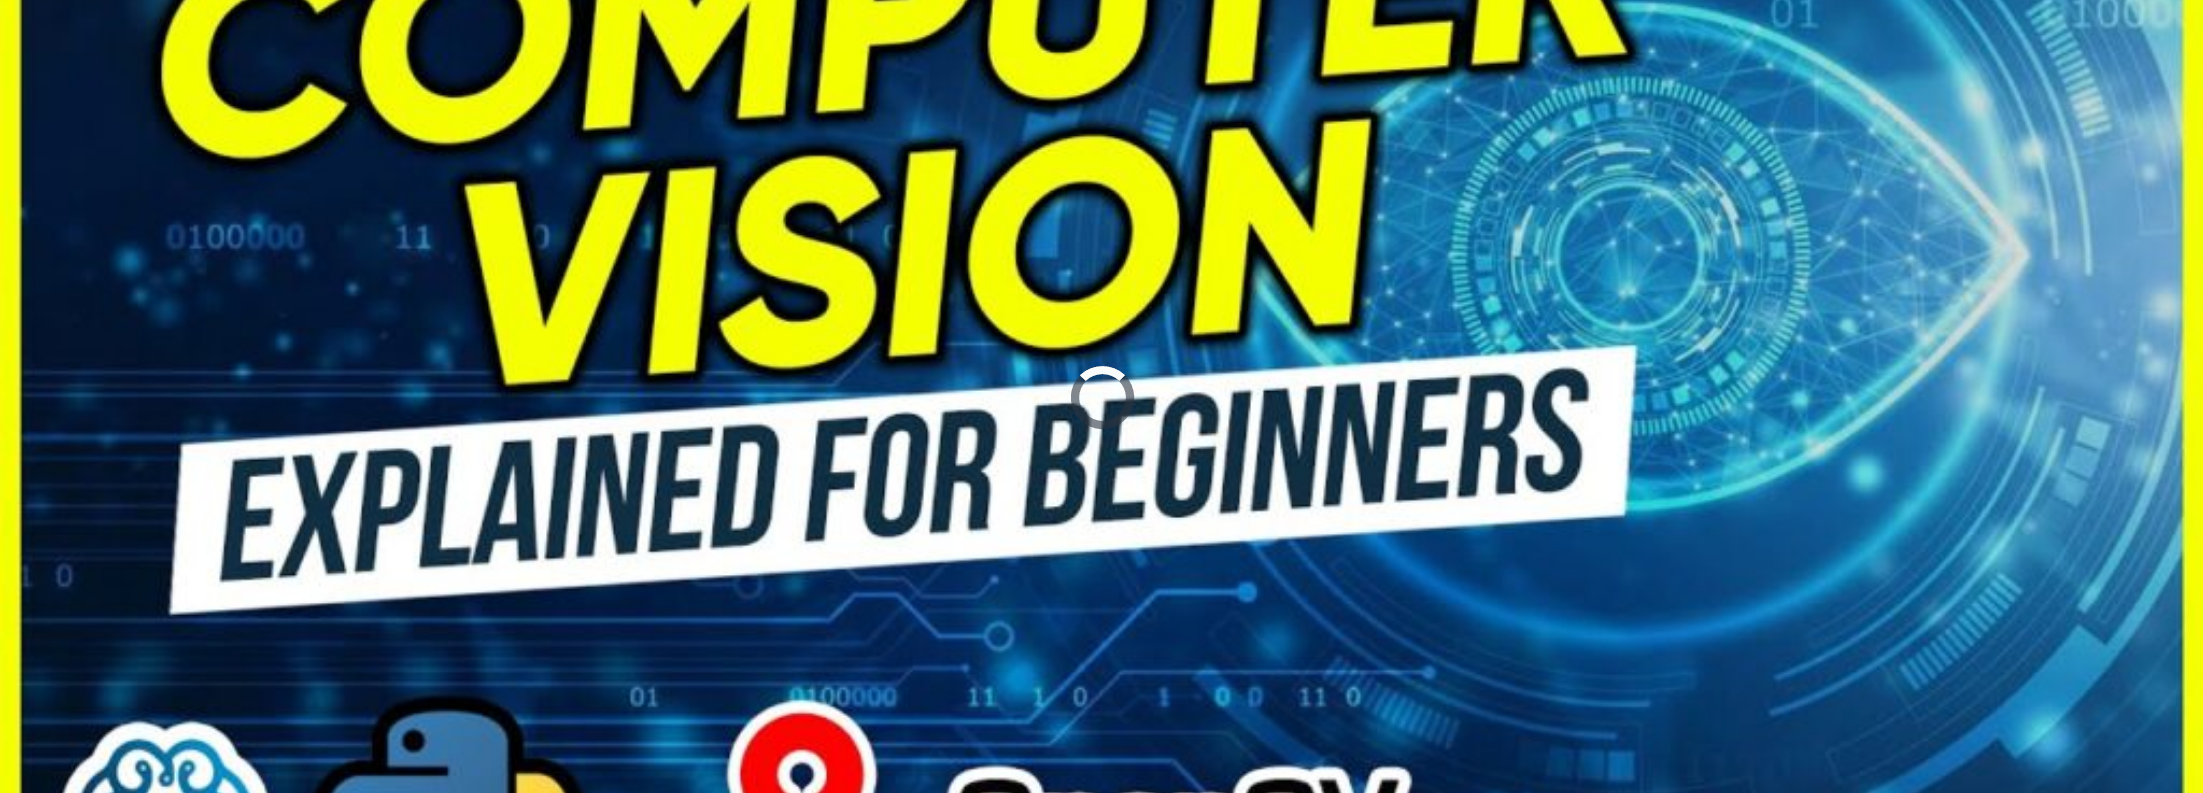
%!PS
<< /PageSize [2203 793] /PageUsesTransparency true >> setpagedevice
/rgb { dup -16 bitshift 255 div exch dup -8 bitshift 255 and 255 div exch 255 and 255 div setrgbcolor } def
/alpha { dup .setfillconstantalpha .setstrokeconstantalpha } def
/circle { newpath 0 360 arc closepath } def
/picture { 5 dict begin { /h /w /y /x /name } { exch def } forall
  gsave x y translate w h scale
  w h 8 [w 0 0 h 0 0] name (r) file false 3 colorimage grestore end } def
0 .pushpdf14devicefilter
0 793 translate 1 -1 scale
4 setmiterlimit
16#FFFFFF rgb
0 0 2203 793 rectfill
(pic1.raw) 0 0 2203 793 picture
0.59 alpha
16#2B333F rgb
8 setlinewidth
1102.5 397.5 27.5 circle stroke
0.85 alpha
16#FFFFFF rgb
7.5 setlinewidth
1083 378 moveto 1093.5 367.5 1111.5 367.5 1122 378 curveto stroke
1083 378 moveto 1093.5 367.5 1111.5 367.5 1122 378 curveto stroke
.poppdf14devicefilter showpage
